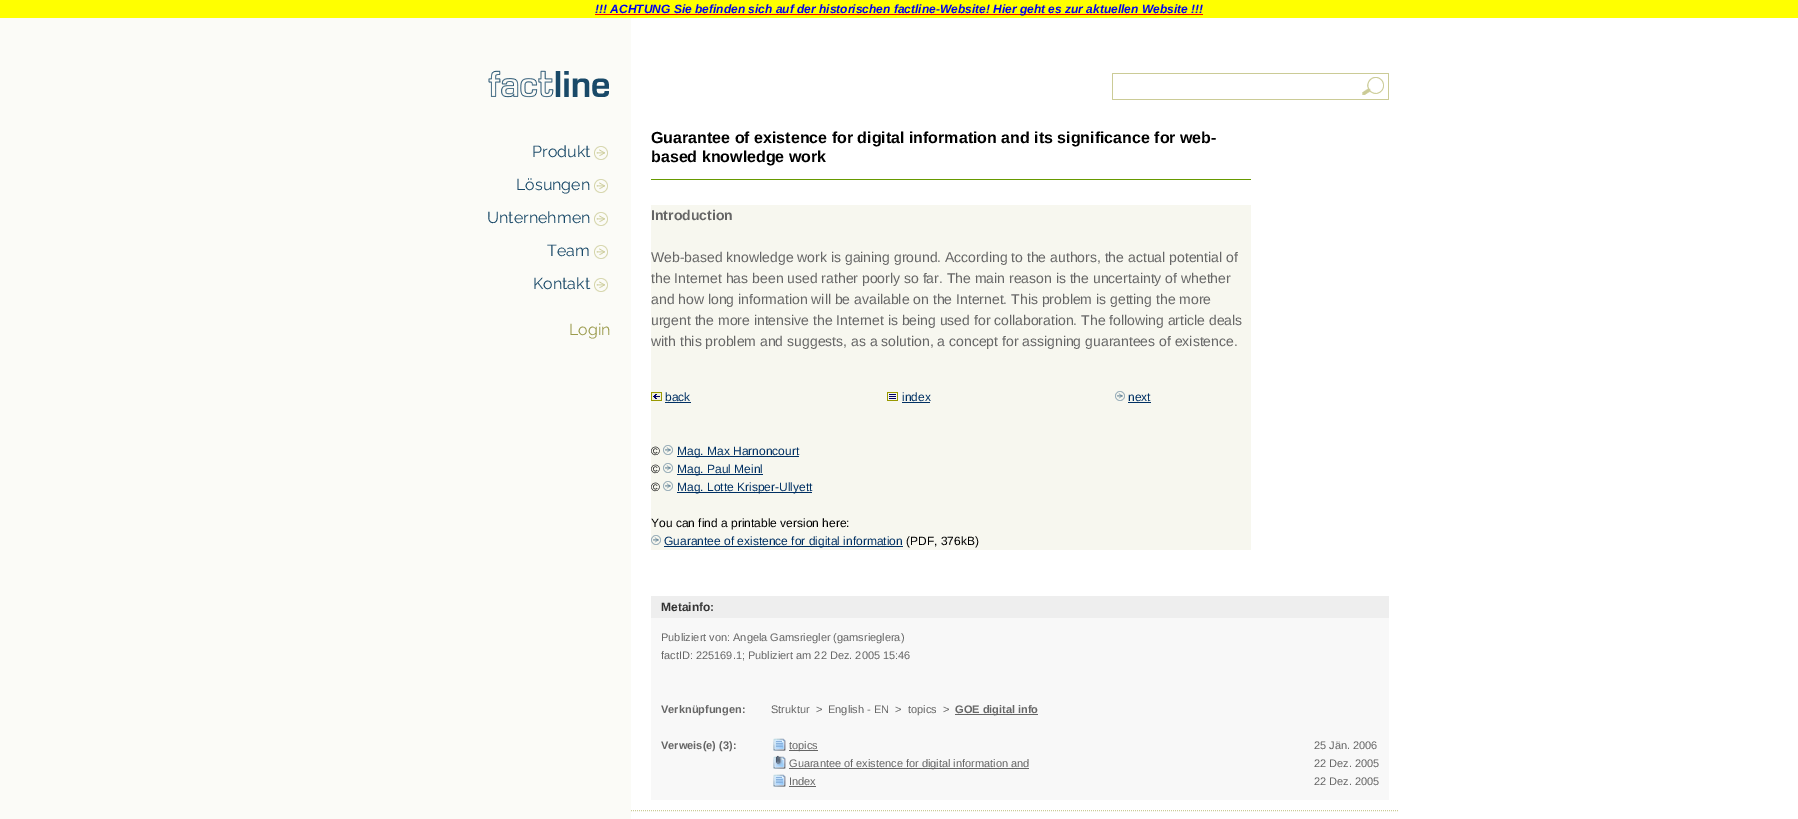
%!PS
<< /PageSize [1798 819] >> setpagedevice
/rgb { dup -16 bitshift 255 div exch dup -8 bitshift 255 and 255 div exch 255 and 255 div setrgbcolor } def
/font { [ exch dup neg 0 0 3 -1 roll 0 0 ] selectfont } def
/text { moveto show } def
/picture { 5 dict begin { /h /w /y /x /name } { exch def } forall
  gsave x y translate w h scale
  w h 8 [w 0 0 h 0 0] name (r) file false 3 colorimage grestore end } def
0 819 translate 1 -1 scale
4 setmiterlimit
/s1 { /LiberationSans-BoldItalic 12 font 16#0000EE rgb } def
/s2 { /Raleway-Regular 16 font 16#194968 rgb } def
/s3 { /Raleway-Regular 16 font 16#9B9B4D rgb } def
/s4 { /LiberationSans-Bold 16 font 16#000000 rgb } def
/s5 { /LiberationSans-Bold 14 font 16#666666 rgb } def
/s6 { /LiberationSans-Regular 14 font 16#666666 rgb } def
/s7 { /LiberationSans-Regular 12 font 16#003063 rgb } def
/s8 { /LiberationSans-Regular 12 font 16#000000 rgb } def
/s9 { /LiberationSans-Bold 12 font 16#333333 rgb } def
/s10 { /LiberationSans-Regular 11 font 16#666666 rgb } def
/s11 { /LiberationSans-Bold 11 font 16#666666 rgb } def
16#FFFFFF rgb
0 0 1798 819 rectfill
16#FBFBF7 rgb
0 18 631 801 rectfill
16#FFFF00 rgb
0 0 1798 18 rectfill
16#FF0000 rgb
595 14 608 1 rectfill
s1
(!!! ACHTUNG Sie befinden sich auf der historischen factline-Website! Hier geht es zur aktuellen Website !!!) 595 13 text
(pic1.raw) 488 70 121 28 picture
(pic2.raw) 1112 73 277 27 picture
(pic3.raw) 594 146 14 14 picture
s2
(Produkt) 532 157 text
(pic3.raw) 594 179 14 14 picture
(Lösungen) 516 190 text
(pic3.raw) 594 212 14 14 picture
(Unternehmen) 487 223 text
(pic3.raw) 594 245 14 14 picture
(Team) 547 256 text
(pic3.raw) 594 278 14 14 picture
(Kontakt) 533 289 text
s3
(Login) 569 335 text
s4
(Guarantee of existence for digital information and its significance for web-) 651 143 text
(based knowledge work) 651 162 text
16#669900 rgb
651 179 600 1 rectfill
16#F7F7EF rgb
651 205 600 345 rectfill
s5
(Introduction) 651 220 text
s6
(Web-based knowledge work is gaining ground. According to the authors, the actual potential of) 651 262 text
(the Internet has been used rather poorly so far. The main reason is the uncertainty of whether) 651 283 text
(and how long information will be available on the Internet. This problem is getting the more) 651 304 text
(urgent the more intensive the Internet is being used for collaboration. The following article deals) 651 325 text
(with this problem and suggests, as a solution, a concept for assigning guarantees of existence.) 651 346 text
(pic4.raw) 651 392 11 9 picture
s7
(back) 665 401 text
665 402 26 1 rectfill
(pic5.raw) 887 392 11 9 picture
(index) 902 401 text
902 402 28 1 rectfill
(pic6.raw) 1115 391 10 10 picture
(next) 1128 401 text
1128 402 23 1 rectfill
s8
(©) 651 455 text
(pic6.raw) 663 445 10 10 picture
16#003063 rgb
677 456 122 1 rectfill
(Mag. Max Harnoncourt) 677 455 text
s8
(©) 651 473 text
(pic6.raw) 663 463 10 10 picture
16#003063 rgb
677 474 86 1 rectfill
(Mag. Paul Meinl) 677 473 text
s8
(©) 651 491 text
(pic6.raw) 663 481 10 10 picture
16#003063 rgb
677 492 135 1 rectfill
(Mag. Lotte Krisper-Ullyett) 677 491 text
s8
(You can find a printable version here:) 651 527 text
(pic6.raw) 651 535 10 10 picture
16#003063 rgb
664 546 239 1 rectfill
(Guarantee of existence for digital information) 664 545 text
s8
(\(PDF, 376kB\)) 906 545 text
16#F8F8F8 rgb
651 618 738 182 rectfill
16#EEEEEE rgb
651 596 738 22 rectfill
s9
(Metainfo:) 661 611 text
s10
(Publiziert von: Angela Gamsriegler \(gamsrieglera\)) 661 641 text
(factID: 225169.1; Publiziert am 22 Dez. 2005 15:46) 661 659 text
s11
(Verknüpfungen:) 661 713 text
s10
(Struktur) 771 713 text
(>) 816 713 text
(English - EN) 828 713 text
(>) 895 713 text
(topics) 908 713 text
(>) 943 713 text
955 714 83 1 rectfill
s11
(GOE digital info) 955 713 text
(Verweis\(e\) \(3\):) 661 749 text
(pic7.raw) 773 738 13 13 picture
789 750 29 1 rectfill
s10
(topics) 789 749 text
(25 Jän. 2006) 1314 749 text
(pic8.raw) 773 755 13 14 picture
789 768 240 1 rectfill
(Guarantee of existence for digital information and) 789 767 text
(22 Dez. 2005) 1314 767 text
(pic7.raw) 773 774 13 13 picture
(Index) 789 785 text
789 786 27 1 rectfill
(22 Dez. 2005) 1314 785 text
16#CBCB96 rgb
[1 1] 0 setdash
631 810.5 moveto 1399 810.5 lineto stroke
showpage
